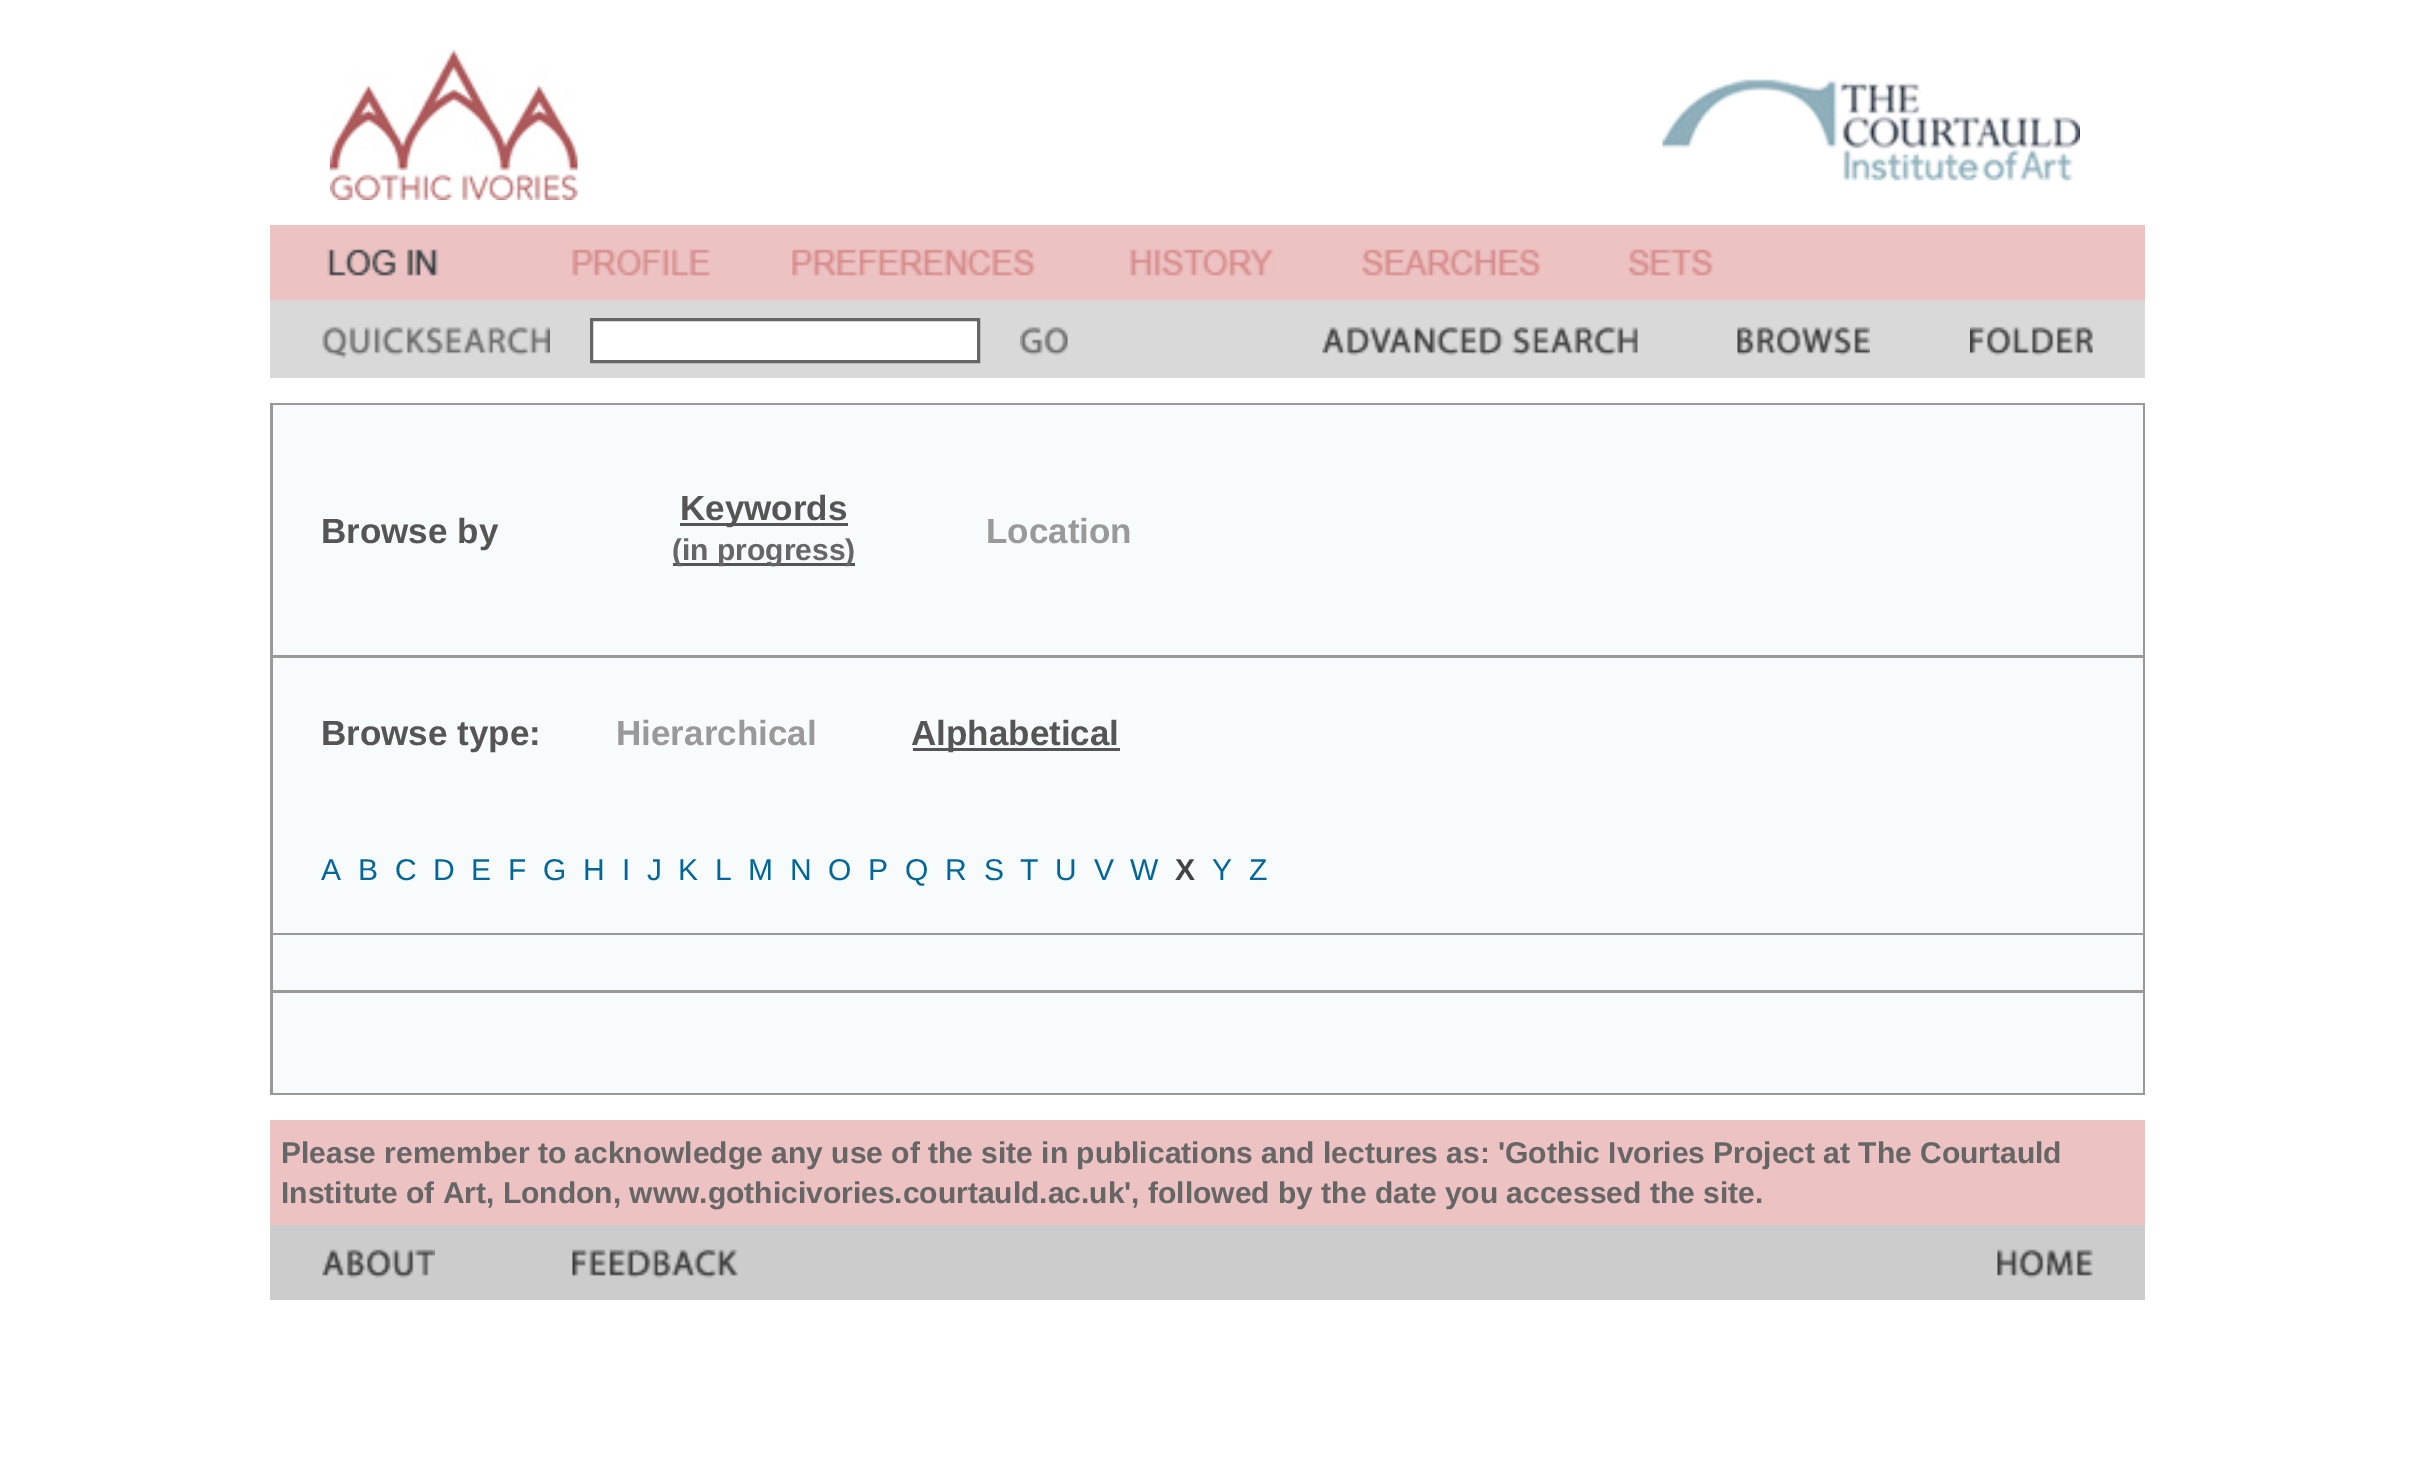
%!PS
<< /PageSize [2411 1468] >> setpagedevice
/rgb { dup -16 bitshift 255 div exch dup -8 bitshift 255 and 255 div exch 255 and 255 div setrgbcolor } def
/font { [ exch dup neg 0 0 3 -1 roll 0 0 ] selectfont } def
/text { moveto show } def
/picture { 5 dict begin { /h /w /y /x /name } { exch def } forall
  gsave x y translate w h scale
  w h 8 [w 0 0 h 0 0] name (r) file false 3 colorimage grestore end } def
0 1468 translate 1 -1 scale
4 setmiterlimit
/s1 { /LiberationSans-Bold 35 font 16#555555 rgb } def
/s2 { /LiberationSans-Bold 30 font 16#666666 rgb } def
/s3 { /LiberationSans-Bold 35 font 16#999999 rgb } def
/s4 { /LiberationSans-Regular 30 font 16#006699 rgb } def
/s5 { /LiberationSans-Bold 30 font 16#444444 rgb } def
16#FFFFFF rgb
0 0 2411 1468 rectfill
(pic1.raw) 330 50 248 150 picture
(pic2.raw) 1662 79 418 102 picture
16#ECC2C2 rgb
270 225 1875 75 rectfill
(pic3.raw) 327 249 112 27 picture
(pic4.raw) 572 249 138 27 picture
(pic5.raw) 792 249 243 27 picture
(pic6.raw) 1130 249 143 27 picture
(pic7.raw) 1362 249 178 27 picture
(pic8.raw) 1627 249 86 27 picture
16#D9D9D9 rgb
270 300 1875 78 rectfill
(pic9.raw) 322 326 228 33 picture
16#FFFFFF rgb
591.5 319.5 moveto 978.5 319.5 lineto 978.5 361.5 lineto 591.5 361.5 lineto closepath gsave fill grestore
16#666666 rgb
3 setlinewidth
stroke
(pic10.raw) 1020 326 48 30 picture
(pic11.raw) 1322 326 316 30 picture
(pic12.raw) 1737 326 133 30 picture
(pic13.raw) 1970 326 123 30 picture
16#999999 rgb
270 403 1875 692 rectfill
16#F8FBFC rgb
273 405 1870 250 rectfill
s1
(Browse by) 321 543 text
680 523 168 3 rectfill
(Keywords) 680 520 text
673 563 182 3 rectfill
s2
(\(in progress\)) 672 560 text
s3
(Location) 986 543 text
16#F8FBFC rgb
273 658 1870 275 rectfill
s1
(Browse type:) 321 745 text
s3
(Hierarchical) 616 745 text
16#555555 rgb
913 748 207 3 rectfill
(Alphabetical) 911 745 text
s4
(A) 321 880 text
(B) 358 880 text
(C) 395 880 text
(D) 433 880 text
(E) 471 880 text
(F) 508 880 text
(G) 543 880 text
(H) 583 880 text
(I) 622 880 text
(J) 647 880 text
(K) 678 880 text
(L) 715 880 text
(M) 748 880 text
(N) 790 880 text
(O) 828 880 text
(P) 868 880 text
(Q) 905 880 text
(R) 945 880 text
(S) 984 880 text
(T) 1020 880 text
(U) 1055 880 text
(V) 1094 880 text
(W) 1130 880 text
s5
(X) 1175 880 text
s4
(Y) 1212 880 text
(Z) 1249 880 text
16#F8FBFC rgb
273 935 1870 55 rectfill
273 993 1870 100 rectfill
16#ECC2C2 rgb
270 1120 1875 105 rectfill
s2
(Please remember to acknowledge any use of the site in publications and lectures as: 'Gothic Ivories Project at The Courtauld) 281 1163 text
(Institute of Art, London, www.gothicivories.courtauld.ac.uk', followed by the date you accessed the site.) 281 1203 text
16#CCCCCC rgb
270 1225 1875 75 rectfill
(pic14.raw) 322 1249 113 30 picture
(pic15.raw) 572 1249 166 30 picture
(pic16.raw) 1997 1249 96 30 picture
showpage
